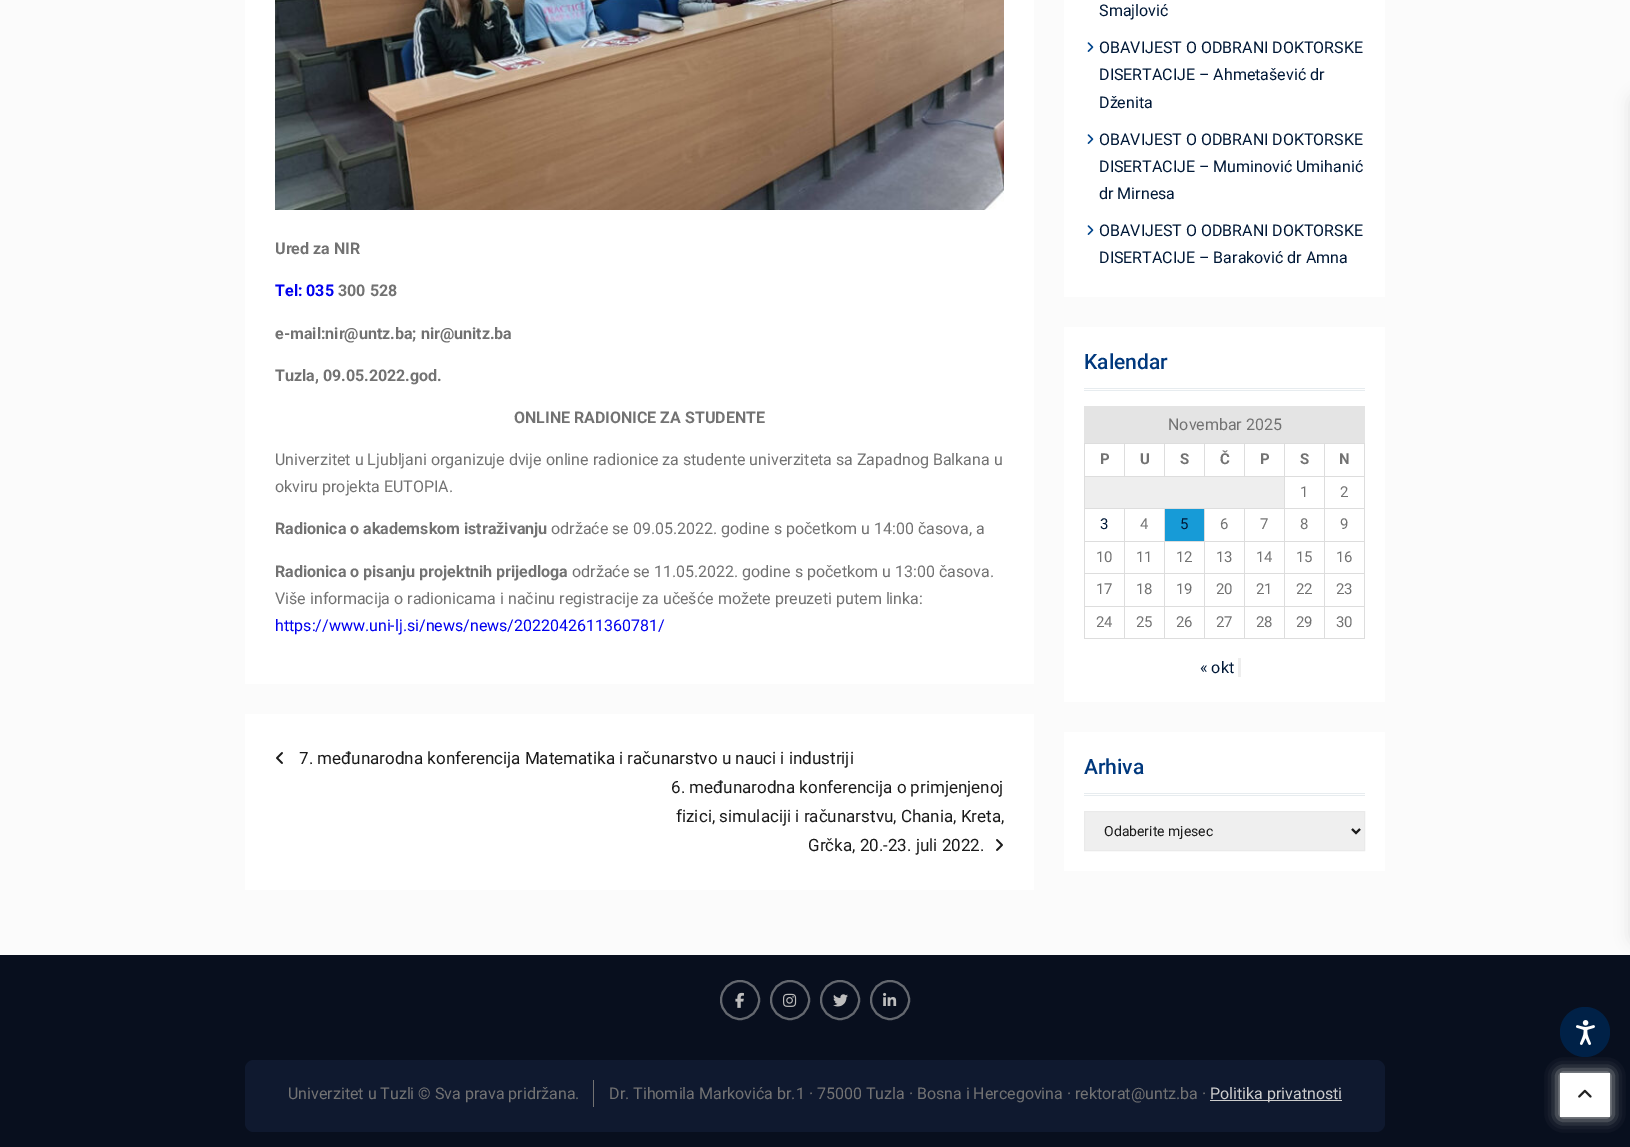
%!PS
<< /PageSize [1630 1147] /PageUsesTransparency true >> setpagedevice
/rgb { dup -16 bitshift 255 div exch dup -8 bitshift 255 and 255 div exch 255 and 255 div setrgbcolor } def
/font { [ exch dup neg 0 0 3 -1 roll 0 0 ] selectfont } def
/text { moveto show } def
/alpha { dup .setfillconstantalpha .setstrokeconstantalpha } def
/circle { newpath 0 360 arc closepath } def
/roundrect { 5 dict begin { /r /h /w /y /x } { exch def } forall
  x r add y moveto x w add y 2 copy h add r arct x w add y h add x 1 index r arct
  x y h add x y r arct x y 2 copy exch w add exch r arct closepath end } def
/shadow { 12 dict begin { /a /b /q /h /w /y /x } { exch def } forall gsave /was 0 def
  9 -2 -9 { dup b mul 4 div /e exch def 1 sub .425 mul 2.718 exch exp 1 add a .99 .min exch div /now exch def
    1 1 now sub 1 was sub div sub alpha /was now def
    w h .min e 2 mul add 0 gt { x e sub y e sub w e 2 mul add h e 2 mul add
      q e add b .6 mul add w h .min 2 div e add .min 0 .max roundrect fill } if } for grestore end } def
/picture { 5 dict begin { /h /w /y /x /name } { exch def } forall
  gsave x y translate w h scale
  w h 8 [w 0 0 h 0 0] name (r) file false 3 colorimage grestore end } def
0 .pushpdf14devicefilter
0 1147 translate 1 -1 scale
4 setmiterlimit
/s1 { /Roboto-Bold 16 font 16#727272 rgb } def
/s2 { /Roboto-Bold 16 font 16#0000EE rgb } def
/s3 { /Roboto-Regular 16 font 16#727272 rgb } def
/s4 { /Roboto-Regular 16 font 16#0000EE rgb } def
/s5 { /Roboto-Regular 17 font 16#1A1A1A rgb } def
/s6 { /Roboto-Regular 16 font 16#001837 rgb } def
/s7 { /Roboto-Medium 21 font 16#00387D rgb } def
/s8 { /Roboto-Bold 15 font 16#727272 rgb } def
/s9 { /Roboto-Regular 15 font 16#727272 rgb } def
/s10 { /Roboto-Regular 15 font 16#001837 rgb } def
/s11 { /Roboto-Regular 14 font 16#1A1A1A rgb } def
/s12 { /Roboto-Regular 16 font 16#CCCCCC rgb } def
16#FBFBFB rgb
0 0 1630 1147 rectfill
16#FFFFFF rgb
245 0 789 684 rectfill
(pic1.raw) 275 0 729 210 picture
s1
(Ured za NIR) 275 254 text
s2
(Tel: 035) 275 296 text
s1
(300 528) 338 296 text
(e-mail:nir@untz.ba; nir@unitz.ba) 275 339 text
(Tuzla, 09.05.2022.god.) 275 381 text
(ONLINE RADIONICE ZA STUDENTE) 514 423 text
s3
(Univerzitet u Ljubljani organizuje dvije online radionice za studente univerziteta sa Zapadnog Balkana u) 275 465 text
(okviru projekta EUTOPIA.) 275 492 text
s1
(Radionica o akademskom istraživanju) 275 534 text
s3
(održaće se 09.05.2022. godine s početkom u 14:00 časova, a) 551 534 text
s1
(Radionica o pisanju projektnih prijedloga) 275 577 text
s3
(održaće se 11.05.2022. godine s početkom u 13:00 časova.) 572 577 text
(Više informacija o radionicama i načinu registracije za učešće možete preuzeti putem linka:) 275 604 text
s4
(https://www.uni-lj.si/news/news/2022042611360781/) 275 631 text
16#FFFFFF rgb
245 714 789 176 rectfill
(pic2.raw) 276 752 7 12 picture
s5
(7. međunarodna konferencija Matematika i računarstvo u nauci i industriji) 299 764 text
(6. međunarodna konferencija o primjenjenoj) 671 793 text
(fizici, simulaciji i računarstvu, Chania, Kreta,) 676 822 text
(Grčka, 20.-23. juli 2022.) 808 851 text
(pic3.raw) 996 839 7 12 picture
16#FFFFFF rgb
1064 0 321 297 rectfill
s6
(Smajlović) 1099 16 text
(pic4.raw) 1087 42 7 10 picture
(OBAVIJEST O ODBRANI DOKTORSKE) 1099 53 text
(DISERTACIJE – Ahmetašević dr) 1099 80 text
(Dženita) 1099 108 text
(pic4.raw) 1087 134 7 10 picture
(OBAVIJEST O ODBRANI DOKTORSKE) 1099 145 text
(DISERTACIJE – Muminović Umihanić) 1099 172 text
(dr Mirnesa) 1099 199 text
(pic4.raw) 1087 225 7 10 picture
(OBAVIJEST O ODBRANI DOKTORSKE) 1099 236 text
(DISERTACIJE – Baraković dr Amna) 1099 263 text
16#FFFFFF rgb
1064 327 321 375 rectfill
16#E7ECEF rgb
1084 388 281 1 rectfill
1084 390 281 1 rectfill
s7
(Kalendar) 1084 369 text
16#E4E4E4 rgb
1084 406 281 37 rectfill
s3
(Novembar 2025) 1168 430 text
16#DDDDDD rgb
1324 443 41 1 rectfill
1324 476 41 1 rectfill
1324 508 41 1 rectfill
1324 541 41 1 rectfill
1324 573 41 1 rectfill
1324 606 41 1 rectfill
1364 606 1 33 rectfill
1324 638 41 1 rectfill
1324 606 1 33 rectfill
1284 606 41 1 rectfill
1324 573 1 34 rectfill
1284 573 41 1 rectfill
1324 541 1 33 rectfill
1284 541 41 1 rectfill
1324 508 1 34 rectfill
1284 508 41 1 rectfill
1324 476 1 33 rectfill
1284 476 41 1 rectfill
1324 443 1 34 rectfill
1284 443 41 1 rectfill
1284 638 41 1 rectfill
1284 606 1 33 rectfill
1244 606 41 1 rectfill
1284 573 1 34 rectfill
1244 573 41 1 rectfill
1284 541 1 33 rectfill
1244 541 41 1 rectfill
1284 508 1 34 rectfill
1244 508 41 1 rectfill
1284 476 1 33 rectfill
1084 476 201 1 rectfill
1284 443 1 34 rectfill
1244 443 41 1 rectfill
1244 443 1 34 rectfill
1204 443 41 1 rectfill
1204 443 1 34 rectfill
1164 443 41 1 rectfill
1164 443 1 34 rectfill
1124 443 41 1 rectfill
1124 443 1 34 rectfill
1084 443 41 1 rectfill
1244 638 41 1 rectfill
1244 606 1 33 rectfill
1204 606 41 1 rectfill
1244 573 1 34 rectfill
1204 573 41 1 rectfill
1244 541 1 33 rectfill
1204 541 41 1 rectfill
1244 508 1 34 rectfill
1204 508 41 1 rectfill
1204 638 41 1 rectfill
1204 606 1 33 rectfill
1164 606 41 1 rectfill
1204 573 1 34 rectfill
1164 573 41 1 rectfill
1204 541 1 33 rectfill
1164 541 41 1 rectfill
1204 508 1 34 rectfill
1164 508 41 1 rectfill
1164 638 41 1 rectfill
1164 606 1 33 rectfill
1124 606 41 1 rectfill
1164 573 1 34 rectfill
1124 573 41 1 rectfill
1164 541 1 33 rectfill
1124 541 41 1 rectfill
1164 508 1 34 rectfill
1124 508 41 1 rectfill
1124 638 41 1 rectfill
1124 606 1 33 rectfill
1084 606 41 1 rectfill
1124 573 1 34 rectfill
1084 573 41 1 rectfill
1124 541 1 33 rectfill
1084 541 41 1 rectfill
1124 508 1 34 rectfill
1084 508 41 1 rectfill
1084 638 41 1 rectfill
1084 606 1 33 rectfill
1084 573 1 34 rectfill
1084 541 1 33 rectfill
1084 508 1 34 rectfill
1084 476 1 33 rectfill
1084 443 1 34 rectfill
s8
(P) 1100 464 text
(U) 1140 464 text
(S) 1180 464 text
(Č) 1220 464 text
(P) 1260 464 text
(S) 1300 464 text
16#DDDDDD rgb
1364 573 1 34 rectfill
1364 541 1 33 rectfill
1364 508 1 34 rectfill
1364 476 1 33 rectfill
1364 443 1 34 rectfill
s8
(N) 1339 464 text
16#EEEEEE rgb
1085 477 199 31 rectfill
s9
(1) 1300 497 text
(2) 1340 497 text
s10
(3) 1100 529 text
s9
(4) 1140 529 text
16#179BD7 rgb
1165 509 39 32 rectfill
s10
(5) 1180 529 text
s9
(6) 1220 529 text
(7) 1260 529 text
(8) 1300 529 text
(9) 1340 529 text
(10) 1096 562 text
(11) 1136 562 text
(12) 1176 562 text
(13) 1216 562 text
(14) 1256 562 text
(15) 1296 562 text
(16) 1336 562 text
(17) 1096 594 text
(18) 1136 594 text
(19) 1176 594 text
(20) 1216 594 text
(21) 1256 594 text
(22) 1296 594 text
(23) 1336 594 text
(24) 1096 627 text
(25) 1136 627 text
(26) 1176 627 text
(27) 1216 627 text
(28) 1256 627 text
(29) 1296 627 text
(30) 1336 627 text
s6
(« okt) 1200 673 text
16#EEEEEE rgb
1238 658 3 19 rectfill
16#FFFFFF rgb
1064 732 321 139 rectfill
16#E7ECEF rgb
1084 793 281 1 rectfill
1084 795 281 1 rectfill
s7
(Arhiva) 1084 774 text
16#EFEFEF rgb
1084.5 811.5 moveto 1364.5 811.5 lineto 1364.5 850.5 lineto 1084.5 850.5 lineto closepath gsave fill grestore
16#EAEAEA rgb
stroke
16#1A1A1A rgb
2 setlinewidth
1352 829 moveto 1356 833 lineto 1360 829 lineto stroke
s11
(Odaberite mjesec) 1104 836 text
16#080F1E rgb
0 955 1630 192 rectfill
16#64686F rgb
740 1000 19 circle stroke
(pic5.raw) 735 992 9 16 picture
790 1000 19 circle stroke
(pic6.raw) 783 993 14 14 picture
840 1000 19 circle stroke
(pic7.raw) 833 994 15 13 picture
890 1000 19 circle stroke
(pic8.raw) 883 992 14 14 picture
16#0F192F rgb
245 1060 1140 72 9 roundrect fill
s3
(Univerzitet u Tuzli © Sva prava pridržana.) 288 1099 text
593 1080 1 27 rectfill
(Dr. Tihomila Markovića br.1 · 75000 Tuzla · Bosna i Hercegovina · rektorat@untz.ba ·) 609 1099 text
16#CCCCCC rgb
1210 1100 132 1 rectfill
(Politika privatnosti) 1210 1099 text
16#000000 rgb
1630 95 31 849 8 7.5 0.1 shadow
16#DDDDDD rgb
1560 1073 50 44 0 7 1 shadow
16#002147 rgb
1585 1032 25 circle fill
(pic9.raw) 1576 1020 19 25 picture
16#FFFFFF rgb
1560 1073 50 44 rectfill
(pic10.raw) 1578 1089 14 9 picture
.poppdf14devicefilter showpage
